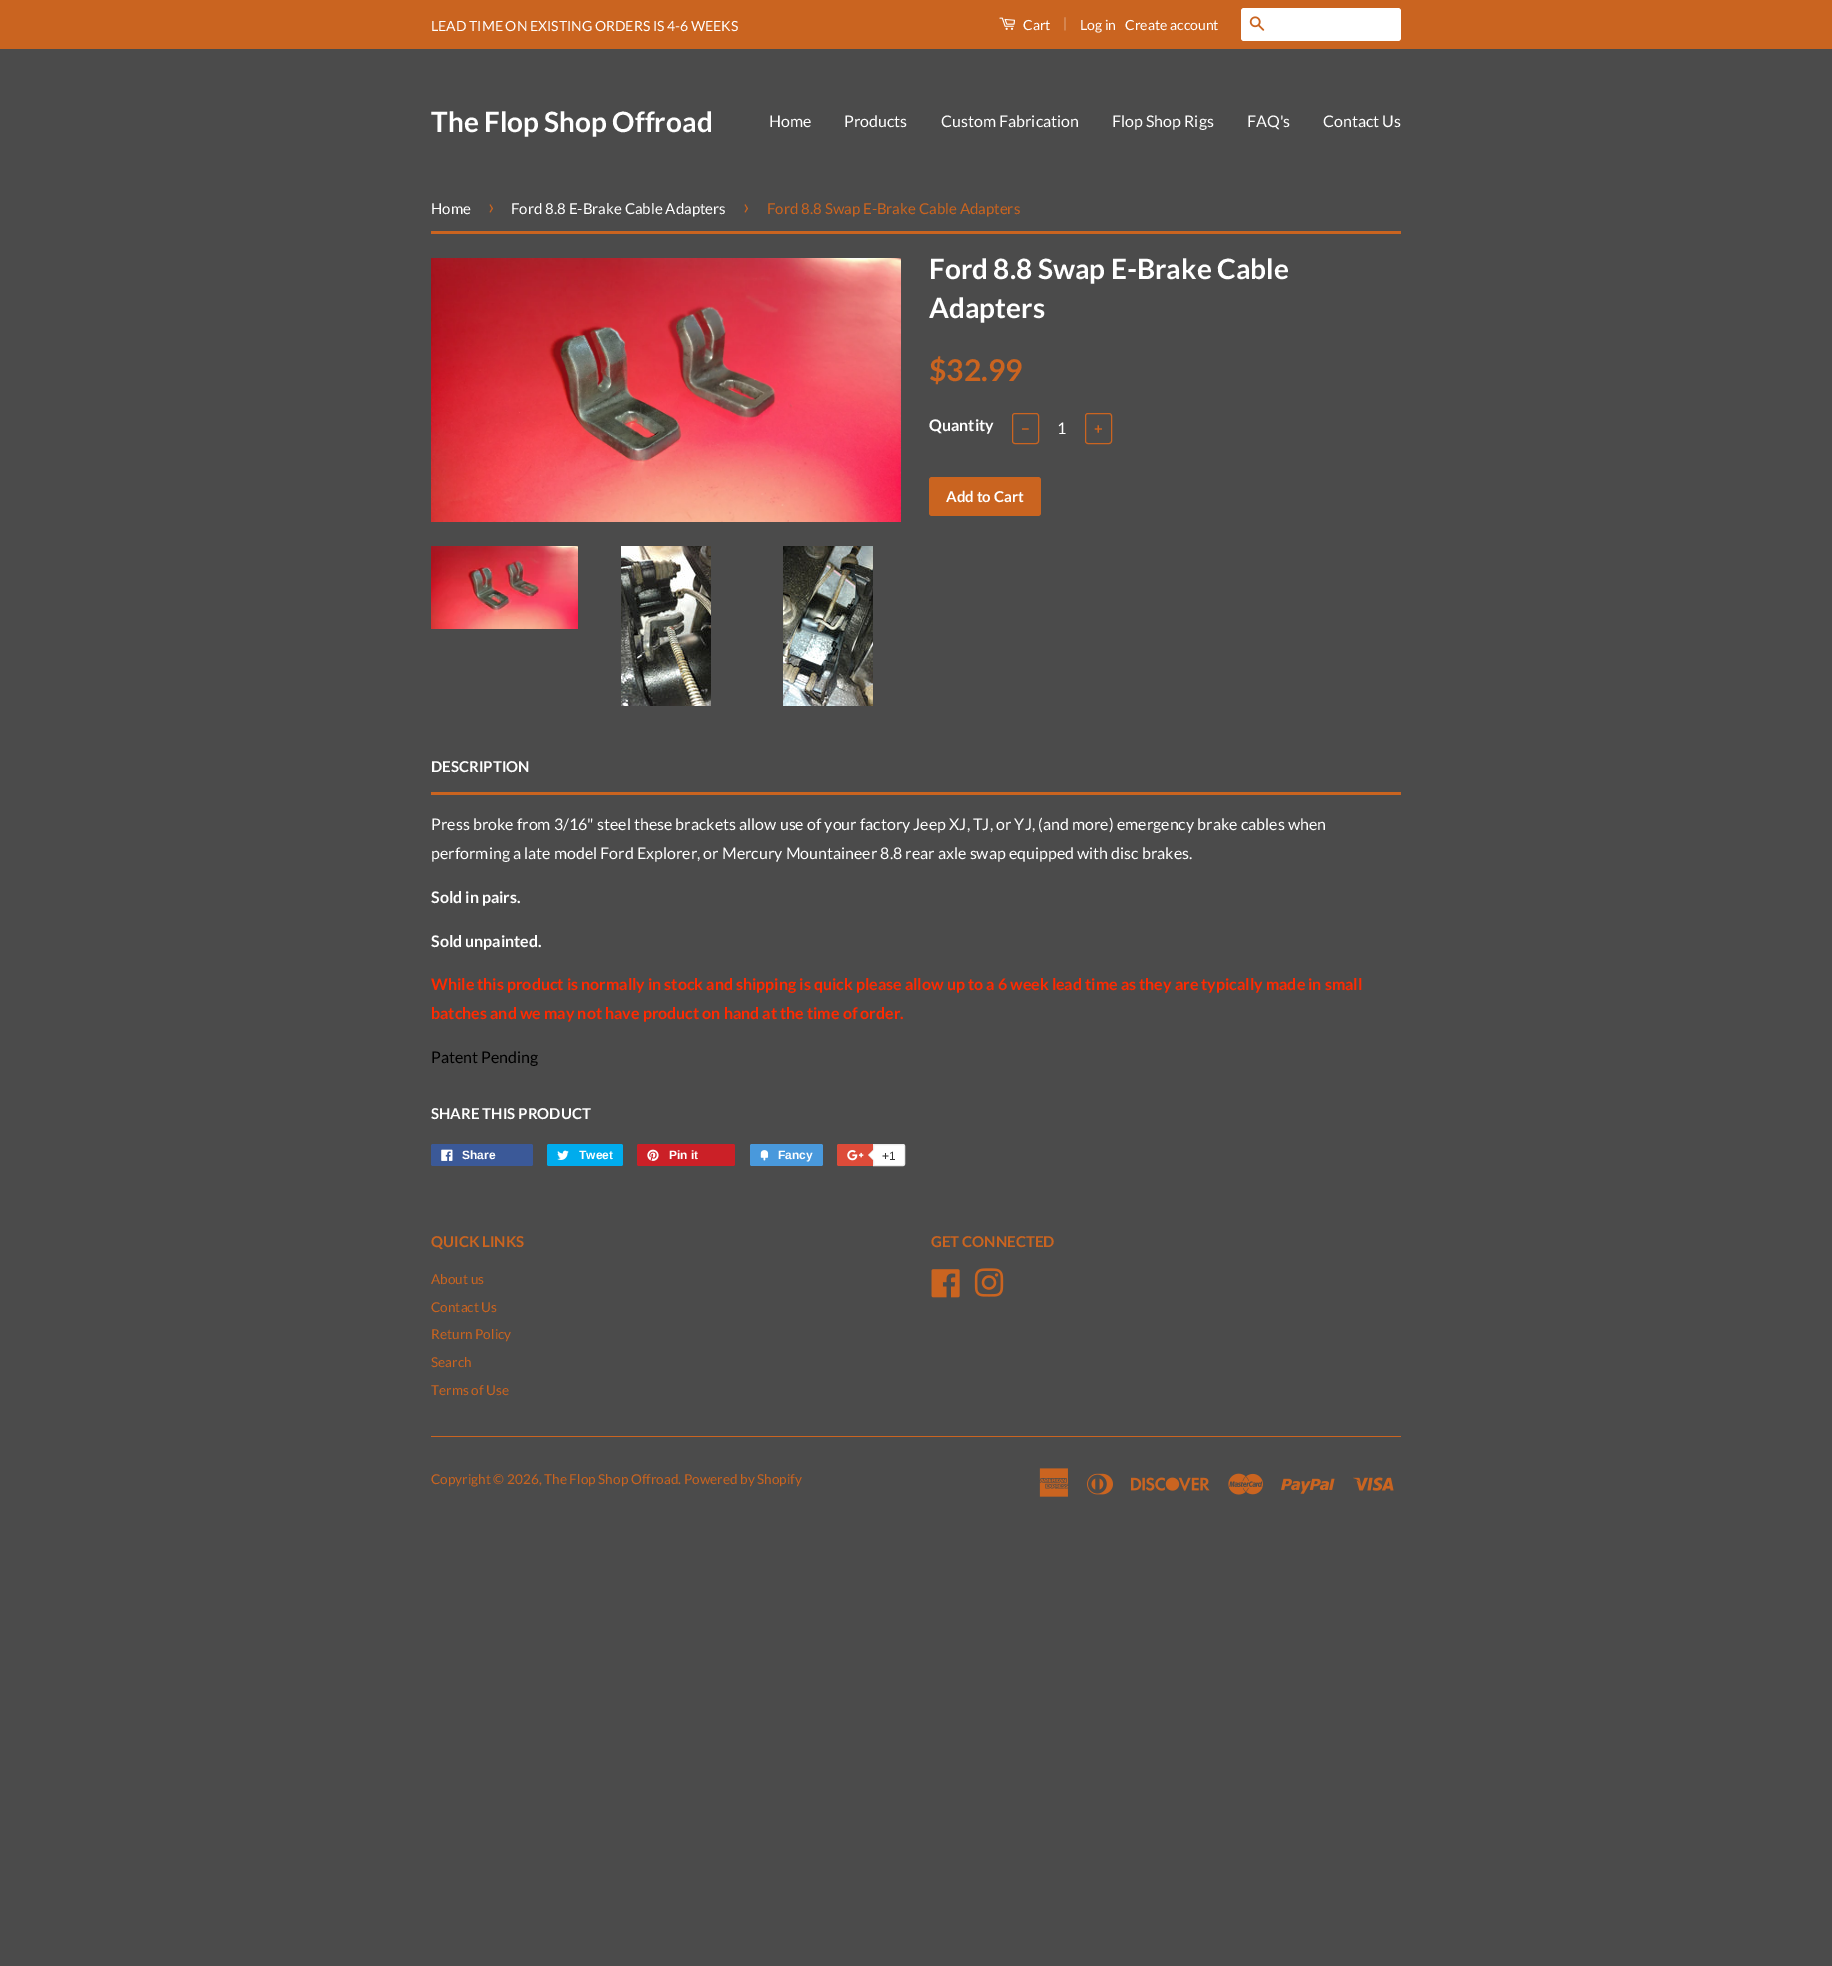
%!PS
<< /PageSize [1832 1966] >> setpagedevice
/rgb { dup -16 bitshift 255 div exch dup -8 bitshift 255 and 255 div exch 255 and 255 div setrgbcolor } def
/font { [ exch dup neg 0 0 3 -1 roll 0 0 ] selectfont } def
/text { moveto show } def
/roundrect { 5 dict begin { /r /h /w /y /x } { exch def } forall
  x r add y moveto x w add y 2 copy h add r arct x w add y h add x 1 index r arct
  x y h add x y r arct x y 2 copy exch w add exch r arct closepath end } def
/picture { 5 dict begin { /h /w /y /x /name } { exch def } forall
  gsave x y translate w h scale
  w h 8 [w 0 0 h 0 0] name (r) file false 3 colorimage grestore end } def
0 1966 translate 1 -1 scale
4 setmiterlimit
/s1 { /Lato-Regular 14 font 16#FFFFFF rgb } def
/s2 { /Lato-Regular 14 font 16#DFA279 rgb } def
/s3 { /Lato-Bold 28 font 16#FFFFFF rgb } def
/s4 { /Lato-Regular 16 font 16#FFFFFF rgb } def
/s5 { /Lato-Regular 15 font 16#FFFFFF rgb } def
/s6 { /Lato-Regular 21 font 16#CA6420 rgb } def
/s7 { /Lato-Regular 15 font 16#CA6420 rgb } def
/s8 { /Lato-Bold 30 font 16#CA6420 rgb } def
/s9 { /Lato-Bold 16 font 16#FFFFFF rgb } def
/s10 { /Lato-Bold 15 font 16#CA6420 rgb } def
/s11 { /Lato-Bold 15 font 16#FFFFFF rgb } def
/s12 { /Lato-Bold 16 font 16#FF2A00 rgb } def
/s13 { /Lato-Regular 16 font 16#000000 rgb } def
/s14 { /LiberationSans-Bold 12 font 16#FFFFFF rgb } def
/s15 { /LiberationSans-Regular 12 font 16#333333 rgb } def
/s16 { /Lato-Regular 13.6 font 16#CA6420 rgb } def
16#4B4B4B rgb
0 0 1832 1966 rectfill
16#CA6420 rgb
0 0 1832 49 rectfill
s1
(LEAD TIME ON EXISTING ORDERS IS 4-6 WEEKS) 431 31 text
(pic1.raw) 999 17 16 13 picture
(Cart) 1023 30 text
s2
(|) 1063 28 text
s1
(Log in) 1080 30 text
(Create account) 1125 30 text
1241 8 160 33 3 roundrect fill
(pic2.raw) 1249 16 16 15 picture
s3
(The Flop Shop Offroad) 431 132 text
s4
(Home) 769 127 text
(Products) 844 127 text
(Custom Fabrication) 941 127 text
(Flop Shop Rigs) 1112 127 text
(FAQ's) 1247 127 text
(Contact Us) 1323 127 text
16#CA6420 rgb
431 231 970 3 rectfill
s5
(Home) 431 214 text
s6
(›) 488 214 text
s5
(Ford 8.8 E-Brake Cable Adapters) 511 214 text
s6
(›) 743 214 text
s7
(Ford 8.8 Swap E-Brake Cable Adapters) 767 214 text
(pic3.raw) 431 258 470 264 picture
s3
(Ford 8.8 Swap E-Brake Cable) 929 279 text
(Adapters) 929 318 text
s8
($32.99) 929 381 text
s9
(Quantity) 929 431 text
16#CA6420 rgb
1012.5 413.5 26 30 2.5 roundrect stroke
s10
(−) 1021 434 text
s4
(1) 1057 434 text
16#CA6420 rgb
1085.5 413.5 26 30 2.5 roundrect stroke
s10
(+) 1094 434 text
929 477 112 39 3 roundrect fill
s11
(Add to Cart) 946 502 text
(pic4.raw) 431 546 147 83 picture
(pic5.raw) 621 546 90 160 picture
(pic6.raw) 783 546 90 160 picture
16#CA6420 rgb
431 792 970 3 rectfill
s11
(DESCRIPTION) 431 772 text
s4
(Press broke from 3/16" steel these brackets allow use of your factory Jeep XJ, TJ, or YJ, \(and more\) emergency brake cables when) 431 830 text
(performing a late model Ford Explorer, or Mercury Mountaineer 8.8 rear axle swap equipped with disc brakes.) 431 859 text
s9
(Sold in pairs.) 431 903 text
(Sold unpainted.) 431 947 text
s12
(While this product is normally in stock and shipping is quick please allow up to a 6 week lead time as they are typically made in small) 431 990 text
(batches and we may not have product on hand at the time of order.) 431 1019 text
s13
(Patent Pending) 431 1063 text
s11
(SHARE THIS PRODUCT) 431 1119 text
16#3B5998 rgb
431 1144 102 22 2 roundrect fill
(pic7.raw) 441 1149 12 12 picture
s14
(Share) 462 1159 text
16#00ACED rgb
547 1144 76 22 2 roundrect fill
(pic8.raw) 557 1150 12 10 picture
s14
(Tweet) 579 1159 text
16#CB2027 rgb
637 1144 98 22 2 roundrect fill
(pic9.raw) 647 1149 12 12 picture
s14
(Pin it) 669 1159 text
16#4999DC rgb
750 1144 73 22 2 roundrect fill
(pic10.raw) 760 1150 9 11 picture
s14
(Fancy) 778 1159 text
16#DD4B39 rgb
837 1144 66 22 2 roundrect fill
(pic11.raw) 847 1150 17 11 picture
16#FFFFFF rgb
873.5 1144.5 moveto 903 1144.5 lineto 904 1144.5 904.5 1145 904.5 1146 curveto 904.5 1164 lineto 904.5 1165 904 1165.5 903 1165.5 curveto 873.5 1165.5 lineto closepath gsave fill grestore
16#ECECEC rgb
stroke
874 1149 moveto 874 1161 lineto 868 1155 lineto closepath fill
16#FFFFFF rgb
875 1149 moveto 875 1161 lineto 869 1155 lineto closepath fill
s15
(+1) 882 1160 text
s10
(QUICK LINKS) 431 1247 text
s16
(About us) 431 1284 text
(Contact Us) 431 1312 text
(Return Policy) 431 1339 text
(Search) 431 1367 text
(Terms of Use) 431 1395 text
s10
(GET CONNECTED) 931 1247 text
(pic12.raw) 931 1269 29 29 picture
(pic13.raw) 974 1268 30 29 picture
431 1436 970 1 rectfill
s16
(Copyright © 2026, The Flop Shop Offroad. Powered by Shopify) 431 1484 text
(pic14.raw) 1039 1468 30 29 picture
(pic15.raw) 1087 1473 26 22 picture
(pic16.raw) 1131 1477 79 14 picture
(pic17.raw) 1228 1473 35 22 picture
(pic18.raw) 1281 1478 54 16 picture
(pic19.raw) 1353 1477 41 14 picture
showpage
